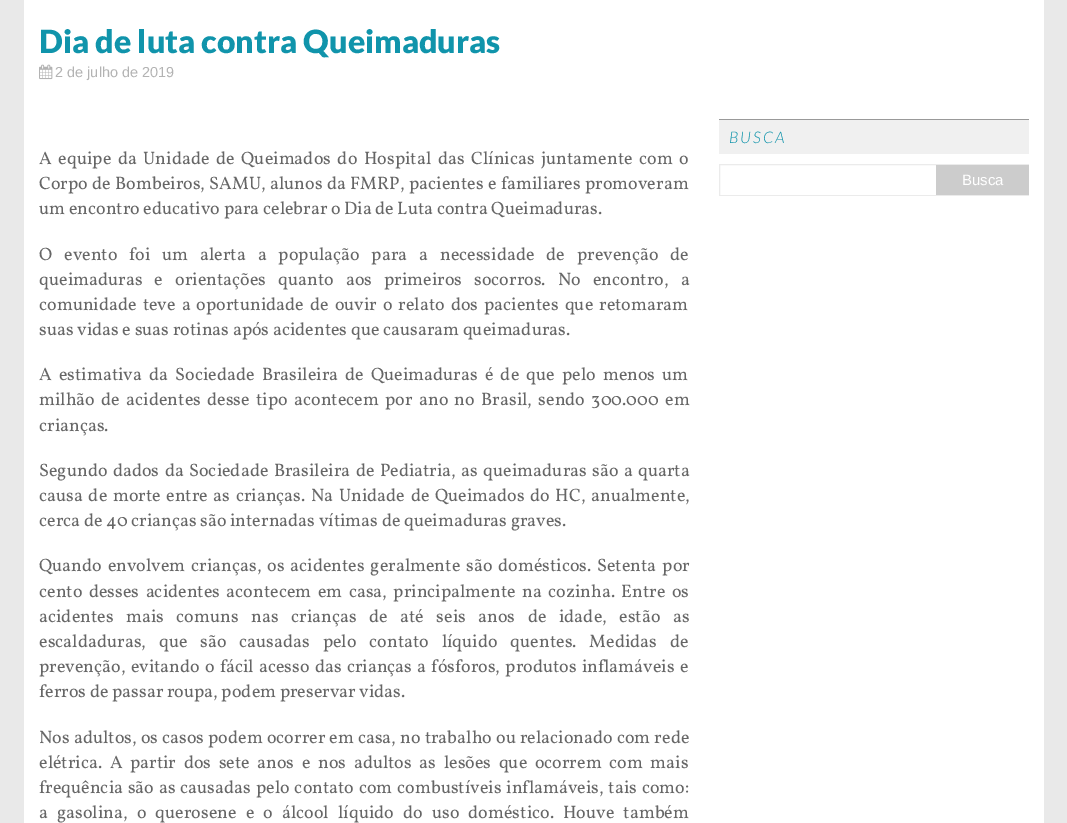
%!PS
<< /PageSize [1067 823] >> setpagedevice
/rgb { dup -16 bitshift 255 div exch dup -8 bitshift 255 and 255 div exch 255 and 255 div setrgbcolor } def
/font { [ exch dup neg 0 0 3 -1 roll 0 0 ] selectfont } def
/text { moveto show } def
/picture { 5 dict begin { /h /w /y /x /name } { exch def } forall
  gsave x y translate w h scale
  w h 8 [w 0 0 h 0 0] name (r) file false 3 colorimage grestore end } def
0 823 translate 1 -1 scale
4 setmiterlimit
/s1 { /Lato-Black 32 font 16#1094AB rgb } def
/s2 { /LiberationSans-Regular 14.5 font 16#B3B3B3 rgb } def
/s3 { /Vollkorn-Regular 18 font 16#666666 rgb } def
/s4 { /LiberationSans-Regular 15 font 16#FFFFFF rgb } def
16#E9E9E9 rgb
0 0 1067 823 rectfill
16#FFFFFF rgb
24 0 1020 823 rectfill
s1
(Dia de luta contra Queimaduras) 39 53 text
(pic1.raw) 39 64 14 16 picture
s2
(2 de julho de 2019) 55 77 text
/Vollkorn-Regular 18 font
16#666666 rgb
39 164 moveto 3 0 32 (A equipe da Unidade de Queimados do Hospital das Clínicas juntamente com o) widthshow
39 189 moveto 0.75 0 32 (Corpo de Bombeiros, SAMU, alunos da FMRP, pacientes e familiares promoveram) widthshow
(um encontro educativo para celebrar o Dia de Luta contra Queimaduras.) 39 214 text
39 260 moveto 8.25 0 32 (O evento foi um alerta a população para a necessidade de prevenção de) widthshow
39 285 moveto 8.5 0 32 (queimaduras e orientações quanto aos primeiros socorros. No encontro, a) widthshow
39 310 moveto 2.4 0 32 (comunidade teve a oportunidade de ouvir o relato dos pacientes que retomaram) widthshow
(suas vidas e suas rotinas após acidentes que causaram queimaduras.) 39 335 text
39 380 moveto 3.5 0 32 (A estimativa da Sociedade Brasileira de Queimaduras é de que pelo menos um) widthshow
39 405 moveto 2.75 0 32 (milhão de acidentes desse tipo acontecem por ano no Brasil, sendo 300.000 em) widthshow
(crianças.) 39 431 text
39 476 moveto 1.75 0 32 (Segundo dados da Sociedade Brasileira de Pediatria, as queimaduras são a quarta) widthshow
39 501 moveto 2 0 32 (causa de morte entre as crianças. Na Unidade de Queimados do HC, anualmente,) widthshow
(cerca de 40 crianças são internadas vítimas de queimaduras graves.) 39 526 text
39 571 moveto 2.25 0 32 (Quando envolvem crianças, os acidentes geralmente são domésticos. Setenta por) widthshow
39 597 moveto 2.9 0 32 (cento desses acidentes acontecem em casa, principalmente na cozinha. Entre os) widthshow
39 622 moveto 8.9 0 32 (acidentes mais comuns nas crianças de até seis anos de idade, estão as) widthshow
39 647 moveto 9.25 0 32 (escaldaduras, que são causadas pelo contato líquido quentes. Medidas de) widthshow
39 672 moveto 1.6 0 32 (prevenção, evitando o fácil acesso das crianças a fósforos, produtos inflamáveis e) widthshow
(ferros de passar roupa, podem preservar vidas.) 39 697 text
39 743 moveto 0.5 0 32 (Nos adultos, os casos podem ocorrer em casa, no trabalho ou relacionado com rede) widthshow
39 768 moveto 4 0 32 (elétrica. A partir dos sete anos e nos adultos as lesões que ocorrem com mais) widthshow
39 793 moveto 1.25 0 32 (frequência são as causadas pelo contato com combustíveis inflamáveis, tais como:) widthshow
39 818 moveto 5.5 0 32 (a gasolina, o querosene e o álcool líquido do uso doméstico. Houve também) widthshow
16#F0F0F0 rgb
719 120 310 34 rectfill
16#999999 rgb
719 119 310 1 rectfill
/Lato-LightItalic 16 font
16#1094AB rgb
729 143 moveto 2 0 (BUSCA) ashow
gsave
719 119 310 77 rectclip
16#EBEBEB rgb
719.5 164.5 311 31 rectstroke
grestore
16#CCCCCC rgb
936 165 93 30 rectfill
s4
(Busca) 962 185 text
showpage
